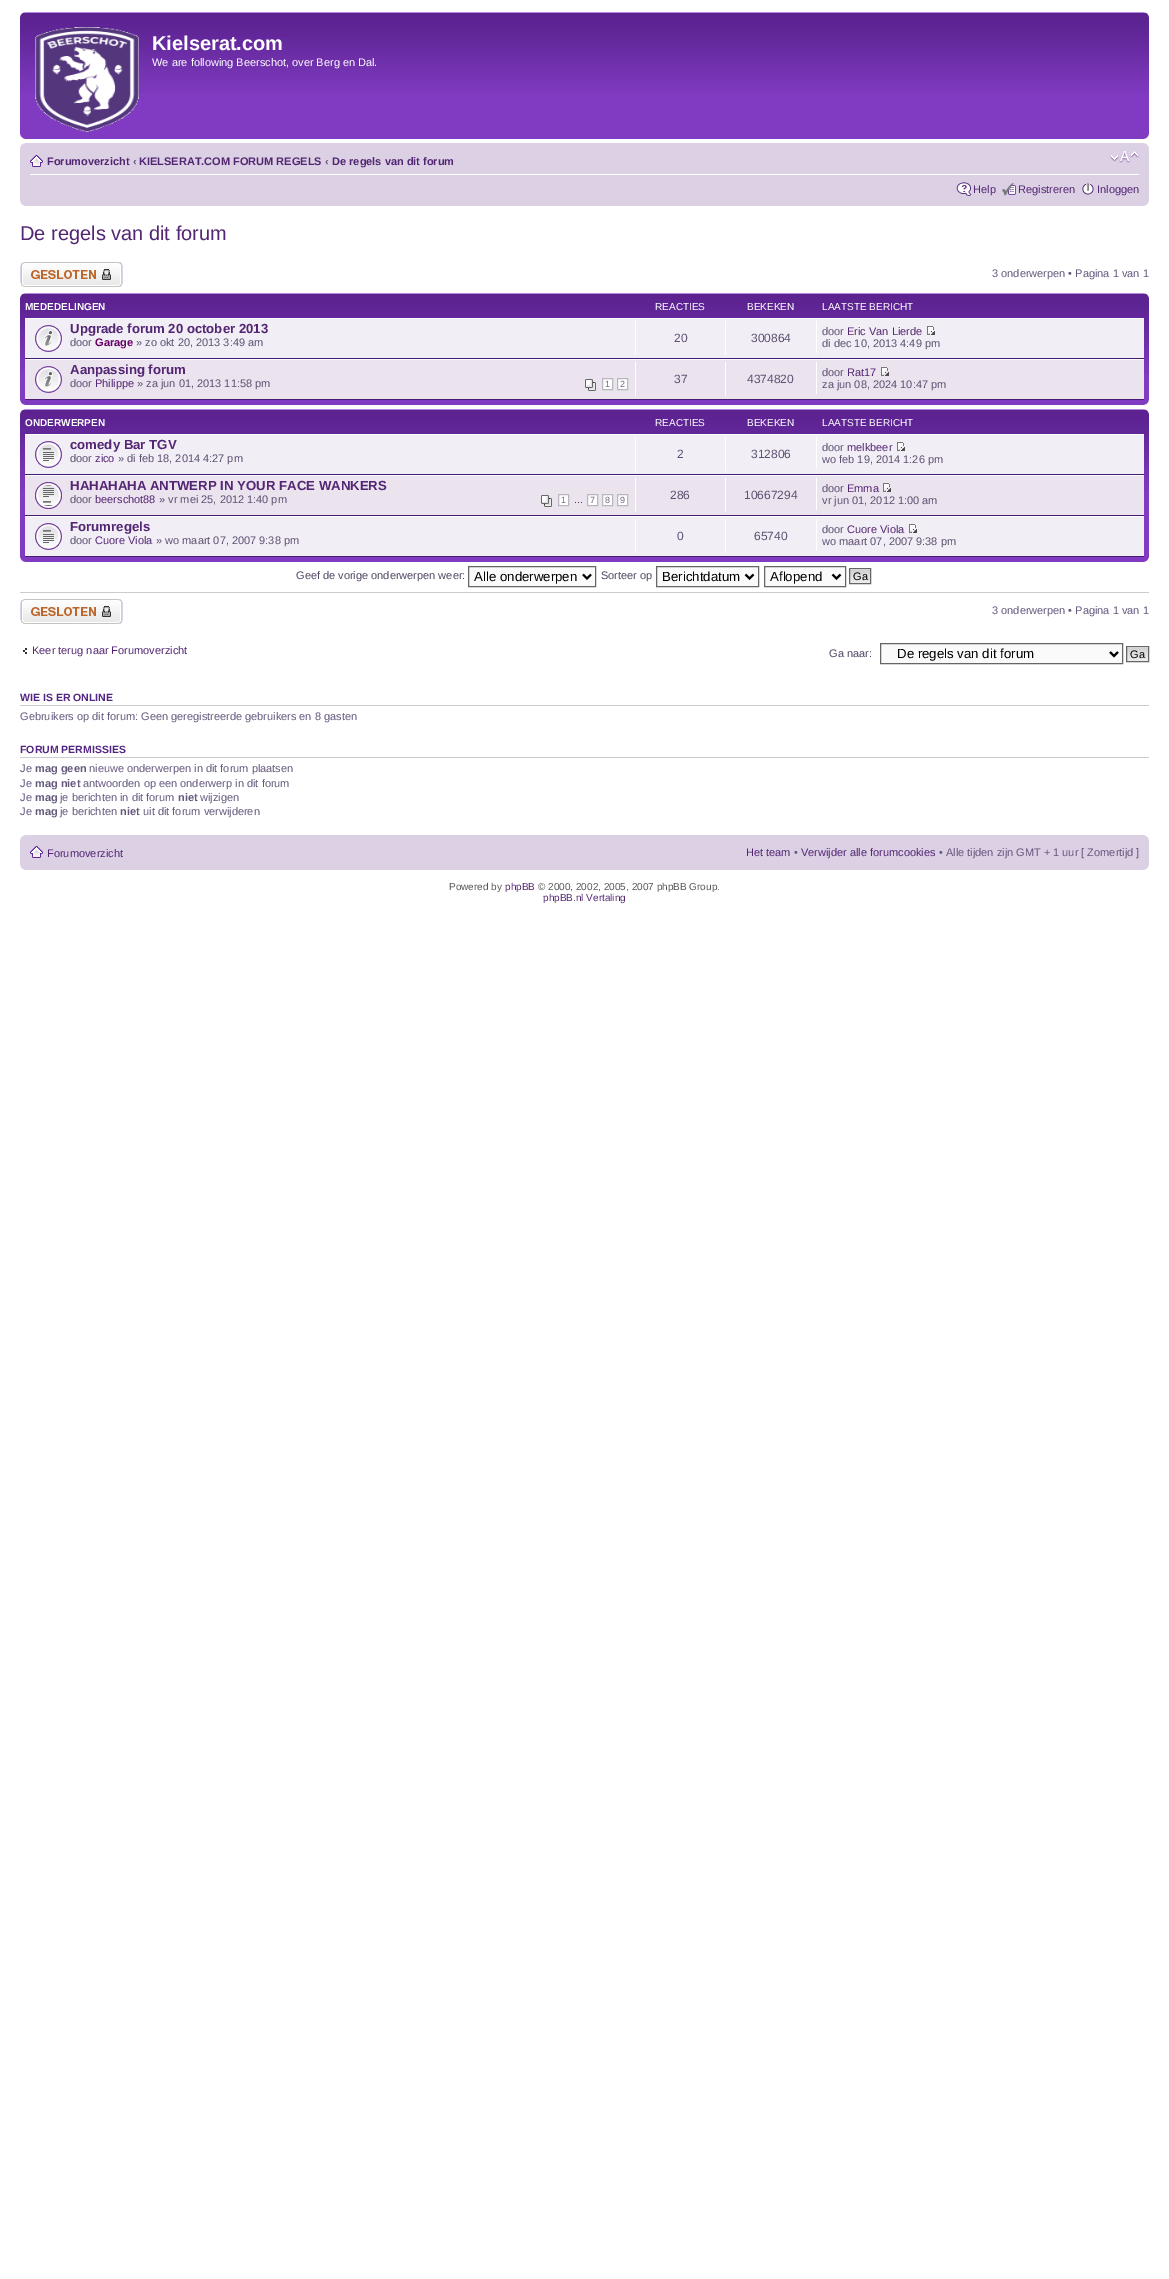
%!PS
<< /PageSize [1169 2279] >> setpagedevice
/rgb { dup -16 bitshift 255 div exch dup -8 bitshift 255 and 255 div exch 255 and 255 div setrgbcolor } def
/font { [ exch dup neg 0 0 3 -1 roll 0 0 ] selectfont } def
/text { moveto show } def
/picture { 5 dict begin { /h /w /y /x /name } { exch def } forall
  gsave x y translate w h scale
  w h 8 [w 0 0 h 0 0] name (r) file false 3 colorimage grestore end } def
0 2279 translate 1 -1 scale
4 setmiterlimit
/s1 { /LiberationSans-Bold 20 font 16#FFFFFF rgb } def
/s2 { /LiberationSans-Regular 11 font 16#FFFFFF rgb } def
/s3 { /LiberationSans-Bold 11 font 16#532673 rgb } def
/s4 { /LiberationSans-Bold 11 font 16#65587D rgb } def
/s5 { /LiberationSans-Regular 11 font 16#532673 rgb } def
/s6 { /LiberationSans-Regular 20 font 16#532673 rgb } def
/s7 { /LiberationSans-Regular 11 font 16#65587D rgb } def
/s8 { /LiberationSans-Bold 10 font 16#FFFFFF rgb } def
/s9 { /LiberationSans-Regular 10 font 16#FFFFFF rgb } def
/s10 { /LiberationSans-Bold 13.2 font 16#532673 rgb } def
/s11 { /LiberationSans-Regular 11 font 16#5E5172 rgb } def
/s12 { /LiberationSans-Bold 11 font 16#660066 rgb } def
/s13 { /LiberationSans-Regular 12 font 16#5E5172 rgb } def
/s14 { /LiberationSans-Regular 9 font 16#766484 rgb } def
/s15 { /LiberationSans-Regular 10 font 16#000000 rgb } def
/s16 { /LiberationSans-Regular 11 font 16#514663 rgb } def
/s17 { /LiberationSans-Regular 13.25 font 16#000000 rgb } def
/s18 { /LiberationSans-Regular 11 font 16#000000 rgb } def
/s19 { /LiberationSans-Bold 10.5 font 16#532683 rgb } def
/s20 { /LiberationSans-Regular 10 font 16#555555 rgb } def
/s21 { /LiberationSans-Regular 10 font 16#532673 rgb } def
16#FFFFFF rgb
0 0 1169 2279 rectfill
16#813BC2 rgb
20 93 1129 46 rectfill
(pic1.raw) 20 12 1129 81 picture
(pic2.raw) 20 12 5 5 picture
(pic3.raw) 1144 12 5 5 picture
(pic4.raw) 35 27 104 105 picture
s1
(Kielserat.com) 152 50 text
s2
(We are following Beerschot, over Berg en Dal.) 152 66 text
(pic5.raw) 20 134 5 5 picture
(pic6.raw) 1144 134 5 5 picture
16#DCD0E5 rgb
20 143 1129 63 rectfill
(pic7.raw) 20 143 5 5 picture
(pic8.raw) 1144 143 5 5 picture
16#FFFFFF rgb
30 174 1109 1 rectfill
(pic9.raw) 30 155 13 12 picture
s3
(Forumoverzicht) 47 165 text
s4
(‹) 133 165 text
s3
(KIELSERAT.COM FORUM REGELS) 139 165 text
s4
(‹) 325 165 text
s3
(De regels van dit forum) 332 165 text
(pic10.raw) 1110 151 29 12 picture
(pic11.raw) 956 182 16 14 picture
s5
(Help) 973 193 text
(pic12.raw) 1002 183 14 13 picture
(Registreren) 1018 193 text
(pic13.raw) 1082 183 12 12 picture
(Inloggen) 1097 193 text
(pic14.raw) 20 201 5 5 picture
(pic15.raw) 1144 201 5 5 picture
s6
(De regels van dit forum) 20 240 text
(pic16.raw) 20 262 103 25 picture
s7
(3 onderwerpen • Pagina 1 van 1) 992 277 text
16#813BC2 rgb
20 374 1129 31 rectfill
(pic1.raw) 20 293 1129 81 picture
(pic2.raw) 20 293 5 5 picture
(pic3.raw) 1144 293 5 5 picture
s8
(MEDEDELINGEN) 25 310 text
s9
(REACTIES) 655 310 text
(BEKEKEN) 747 310 text
(LAATSTE BERICHT) 822 310 text
16#F2EEF5 rgb
25 319 1119 39 rectfill
16#FFFFFF rgb
25 318 1119 1 rectfill
16#491B74 rgb
25 358 1119 1 rectfill
(pic17.raw) 35 325 27 27 picture
s10
(Upgrade forum 20 october 2013) 70 333 text
s11
(door) 70 346 text
s12
(Garage) 95 346 text
s11
(» zo okt 20, 2013 3:49 am) 136 346 text
16#FFFFFF rgb
635 321 1 34 rectfill
s13
(20) 674 342 text
16#FFFFFF rgb
725 321 1 34 rectfill
s13
(300864) 751 342 text
16#FFFFFF rgb
816 321 1 32 rectfill
s11
(door) 822 335 text
s5
(Eric Van Lierde) 847 335 text
(pic18.raw) 927 326 8 9 picture
s11
(di dec 10, 2013 4:49 pm) 822 347 text
16#EBE4EF rgb
25 360 1119 39 rectfill
16#FFFFFF rgb
25 359 1119 1 rectfill
16#491B74 rgb
25 399 1119 1 rectfill
(pic19.raw) 35 366 27 27 picture
s10
(Aanpassing forum) 70 374 text
s11
(door) 70 387 text
s5
(Philippe) 95 387 text
s11
(» za jun 01, 2013 11:58 pm) 137 387 text
(pic20.raw) 585 379 11 12 picture
16#FFFFFF rgb
602.5 378.5 moveto 612.5 378.5 lineto 612.5 389.5 lineto 602.5 389.5 lineto closepath gsave fill grestore
16#BAB6BE rgb
stroke
s14
(1) 605 387 text
16#FFFFFF rgb
617.5 378.5 moveto 627.5 378.5 lineto 627.5 389.5 lineto 617.5 389.5 lineto closepath gsave fill grestore
16#BAB6BE rgb
stroke
s14
(2) 620 387 text
16#FFFFFF rgb
635 362 1 34 rectfill
s13
(37) 674 383 text
16#FFFFFF rgb
725 362 1 34 rectfill
s13
(4374820) 747 383 text
16#FFFFFF rgb
816 362 1 32 rectfill
s11
(door) 822 376 text
s5
(Rat17) 847 376 text
(pic21.raw) 881 367 8 9 picture
s11
(za jun 08, 2024 10:47 pm) 822 388 text
(pic5.raw) 20 400 5 5 picture
(pic6.raw) 1144 400 5 5 picture
16#813BC2 rgb
20 490 1129 72 rectfill
(pic1.raw) 20 409 1129 81 picture
(pic2.raw) 20 409 5 5 picture
(pic3.raw) 1144 409 5 5 picture
s8
(ONDERWERPEN) 25 426 text
s9
(REACTIES) 655 426 text
(BEKEKEN) 747 426 text
(LAATSTE BERICHT) 822 426 text
16#F2EEF5 rgb
25 435 1119 39 rectfill
16#FFFFFF rgb
25 434 1119 1 rectfill
16#491B74 rgb
25 474 1119 1 rectfill
(pic22.raw) 35 441 27 27 picture
s10
(comedy Bar TGV) 70 449 text
s11
(door) 70 462 text
s5
(zico) 95 462 text
s11
(» di feb 18, 2014 4:27 pm) 118 462 text
16#FFFFFF rgb
635 437 1 34 rectfill
s13
(2) 677 458 text
16#FFFFFF rgb
725 437 1 34 rectfill
s13
(312806) 751 458 text
16#FFFFFF rgb
816 437 1 32 rectfill
s11
(door) 822 451 text
s5
(melkbeer) 847 451 text
(pic18.raw) 897 442 8 9 picture
s11
(wo feb 19, 2014 1:26 pm) 822 463 text
16#EBE4EF rgb
25 476 1119 39 rectfill
16#FFFFFF rgb
25 475 1119 1 rectfill
16#491B74 rgb
25 515 1119 1 rectfill
(pic23.raw) 35 482 27 27 picture
s10
(HAHAHAHA ANTWERP IN YOUR FACE WANKERS) 70 490 text
s11
(door) 70 503 text
s5
(beerschot88) 95 503 text
s11
(» vr mei 25, 2012 1:40 pm) 159 503 text
(pic20.raw) 541 495 11 12 picture
16#FFFFFF rgb
558.5 494.5 moveto 568.5 494.5 lineto 568.5 505.5 lineto 558.5 505.5 lineto closepath gsave fill grestore
16#BAB6BE rgb
stroke
s14
(1) 561 503 text
s15
(...) 574 503 text
16#FFFFFF rgb
587.5 494.5 moveto 597.5 494.5 lineto 597.5 505.5 lineto 587.5 505.5 lineto closepath gsave fill grestore
16#BAB6BE rgb
stroke
s14
(7) 590 503 text
16#FFFFFF rgb
602.5 494.5 moveto 612.5 494.5 lineto 612.5 505.5 lineto 602.5 505.5 lineto closepath gsave fill grestore
16#BAB6BE rgb
stroke
s14
(8) 605 503 text
16#FFFFFF rgb
617.5 494.5 moveto 627.5 494.5 lineto 627.5 505.5 lineto 617.5 505.5 lineto closepath gsave fill grestore
16#BAB6BE rgb
stroke
s14
(9) 620 503 text
16#FFFFFF rgb
635 478 1 34 rectfill
s13
(286) 670 499 text
16#FFFFFF rgb
725 478 1 34 rectfill
s13
(10667294) 744 499 text
16#FFFFFF rgb
816 478 1 32 rectfill
s11
(door) 822 492 text
s5
(Emma) 847 492 text
(pic21.raw) 883 483 8 9 picture
s11
(vr jun 01, 2012 1:00 am) 822 504 text
16#F2EEF5 rgb
25 517 1119 39 rectfill
16#FFFFFF rgb
25 516 1119 1 rectfill
16#491B74 rgb
25 556 1119 1 rectfill
(pic22.raw) 35 523 27 27 picture
s10
(Forumregels) 70 531 text
s11
(door) 70 544 text
s5
(Cuore Viola) 95 544 text
s11
(» wo maart 07, 2007 9:38 pm) 156 544 text
16#FFFFFF rgb
635 519 1 34 rectfill
s13
(0) 677 540 text
16#FFFFFF rgb
725 519 1 34 rectfill
s13
(65740) 754 540 text
16#FFFFFF rgb
816 519 1 32 rectfill
s11
(door) 822 533 text
s5
(Cuore Viola) 847 533 text
(pic18.raw) 909 524 8 9 picture
s11
(wo maart 07, 2007 9:38 pm) 822 545 text
(pic5.raw) 20 557 5 5 picture
(pic6.raw) 1144 557 5 5 picture
s16
(Geef de vorige onderwerpen weer:) 296 579 text
16#FAFAFA rgb
468.5 566.5 moveto 595.5 566.5 lineto 595.5 586.5 lineto 468.5 586.5 lineto closepath gsave fill grestore
16#666666 rgb
stroke
16#000000 rgb
2 setlinewidth
583 574.5 moveto 587 578.5 lineto 591 574.5 lineto stroke
s17
(Alle onderwerpen) 474 581 text
s16
(Sorteer op) 601 579 text
16#FAFAFA rgb
656.5 566.5 moveto 758.5 566.5 lineto 758.5 586.5 lineto 656.5 586.5 lineto closepath gsave fill grestore
16#666666 rgb
1 setlinewidth
stroke
16#000000 rgb
2 setlinewidth
745.5 574.5 moveto 749.5 578.5 lineto 753.5 574.5 lineto stroke
s17
(Berichtdatum) 662 581 text
16#FAFAFA rgb
764.5 566.5 moveto 845.5 566.5 lineto 845.5 586.5 lineto 764.5 586.5 lineto closepath gsave fill grestore
16#666666 rgb
1 setlinewidth
stroke
16#000000 rgb
2 setlinewidth
832.5 574.5 moveto 836.5 578.5 lineto 840.5 574.5 lineto stroke
(Aflopend) 770 581 text
(pic24.raw) 850 569 20 14 picture
16#666666 rgb
1 setlinewidth
849.5 568.5 21 15 rectstroke
s18
(Ga) 853 580 text
16#CCCCCC rgb
20 592 1129 1 rectfill
(pic16.raw) 20 599 103 25 picture
s7
(3 onderwerpen • Pagina 1 van 1) 992 614 text
(pic25.raw) 23 648 4 6 picture
s5
(Keer terug naar Forumoverzicht) 32 654 text
s16
(Ga naar:) 829 657 text
16#FAFAFA rgb
880.5 643.5 moveto 1122.5 643.5 lineto 1122.5 663.5 lineto 880.5 663.5 lineto closepath gsave fill grestore
16#666666 rgb
stroke
16#000000 rgb
2 setlinewidth
1110 652 moveto 1114 656 lineto 1118 652 lineto stroke
s17
(De regels van dit forum) 897 658 text
(pic26.raw) 1127 647 21 14 picture
16#666666 rgb
1 setlinewidth
1126.5 646.5 22 15 rectstroke
s18
(Ga) 1130 658 text
16#CCCCCC rgb
20 705 1129 1 rectfill
s19
(WIE IS ER ONLINE) 20 701 text
s7
(Gebruikers op dit forum: Geen geregistreerde gebruikers en 8 gasten) 20 720 text
16#CCCCCC rgb
20 757 1129 1 rectfill
s19
(FORUM PERMISSIES) 20 753 text
s7
(Je) 20 772 text
s4
(mag geen) 35 772 text
s7
(nieuwe onderwerpen in dit forum plaatsen) 89 772 text
(Je) 20 787 text
s4
(mag niet) 35 787 text
s7
(antwoorden op een onderwerp in dit forum) 83 787 text
(Je) 20 801 text
s4
(mag) 35 801 text
s7
(je berichten in dit forum) 60 801 text
s4
(niet) 178 801 text
s7
(wijzigen) 200 801 text
(Je) 20 815 text
s4
(mag) 35 815 text
s7
(je berichten) 60 815 text
s4
(niet) 120 815 text
s7
(uit dit forum verwijderen) 143 815 text
16#DCD0E5 rgb
20 835 1129 35 rectfill
(pic7.raw) 20 835 5 5 picture
(pic8.raw) 1144 835 5 5 picture
(pic9.raw) 30 846 13 12 picture
s5
(Forumoverzicht) 47 857 text
(Het team) 746 856 text
s7
(•) 794 856 text
s5
(Verwijder alle forumcookies) 801 856 text
s7
(• Alle tijden zijn GMT + 1 uur [ Zomertijd ]) 939 856 text
(pic14.raw) 20 865 5 5 picture
(pic15.raw) 1144 865 5 5 picture
s20
(Powered by) 449 890 text
s21
(phpBB) 505 890 text
s20
(© 2000, 2002, 2005, 2007 phpBB Group.) 538 890 text
s21
(phpBB.nl Vertaling) 543 901 text
showpage
